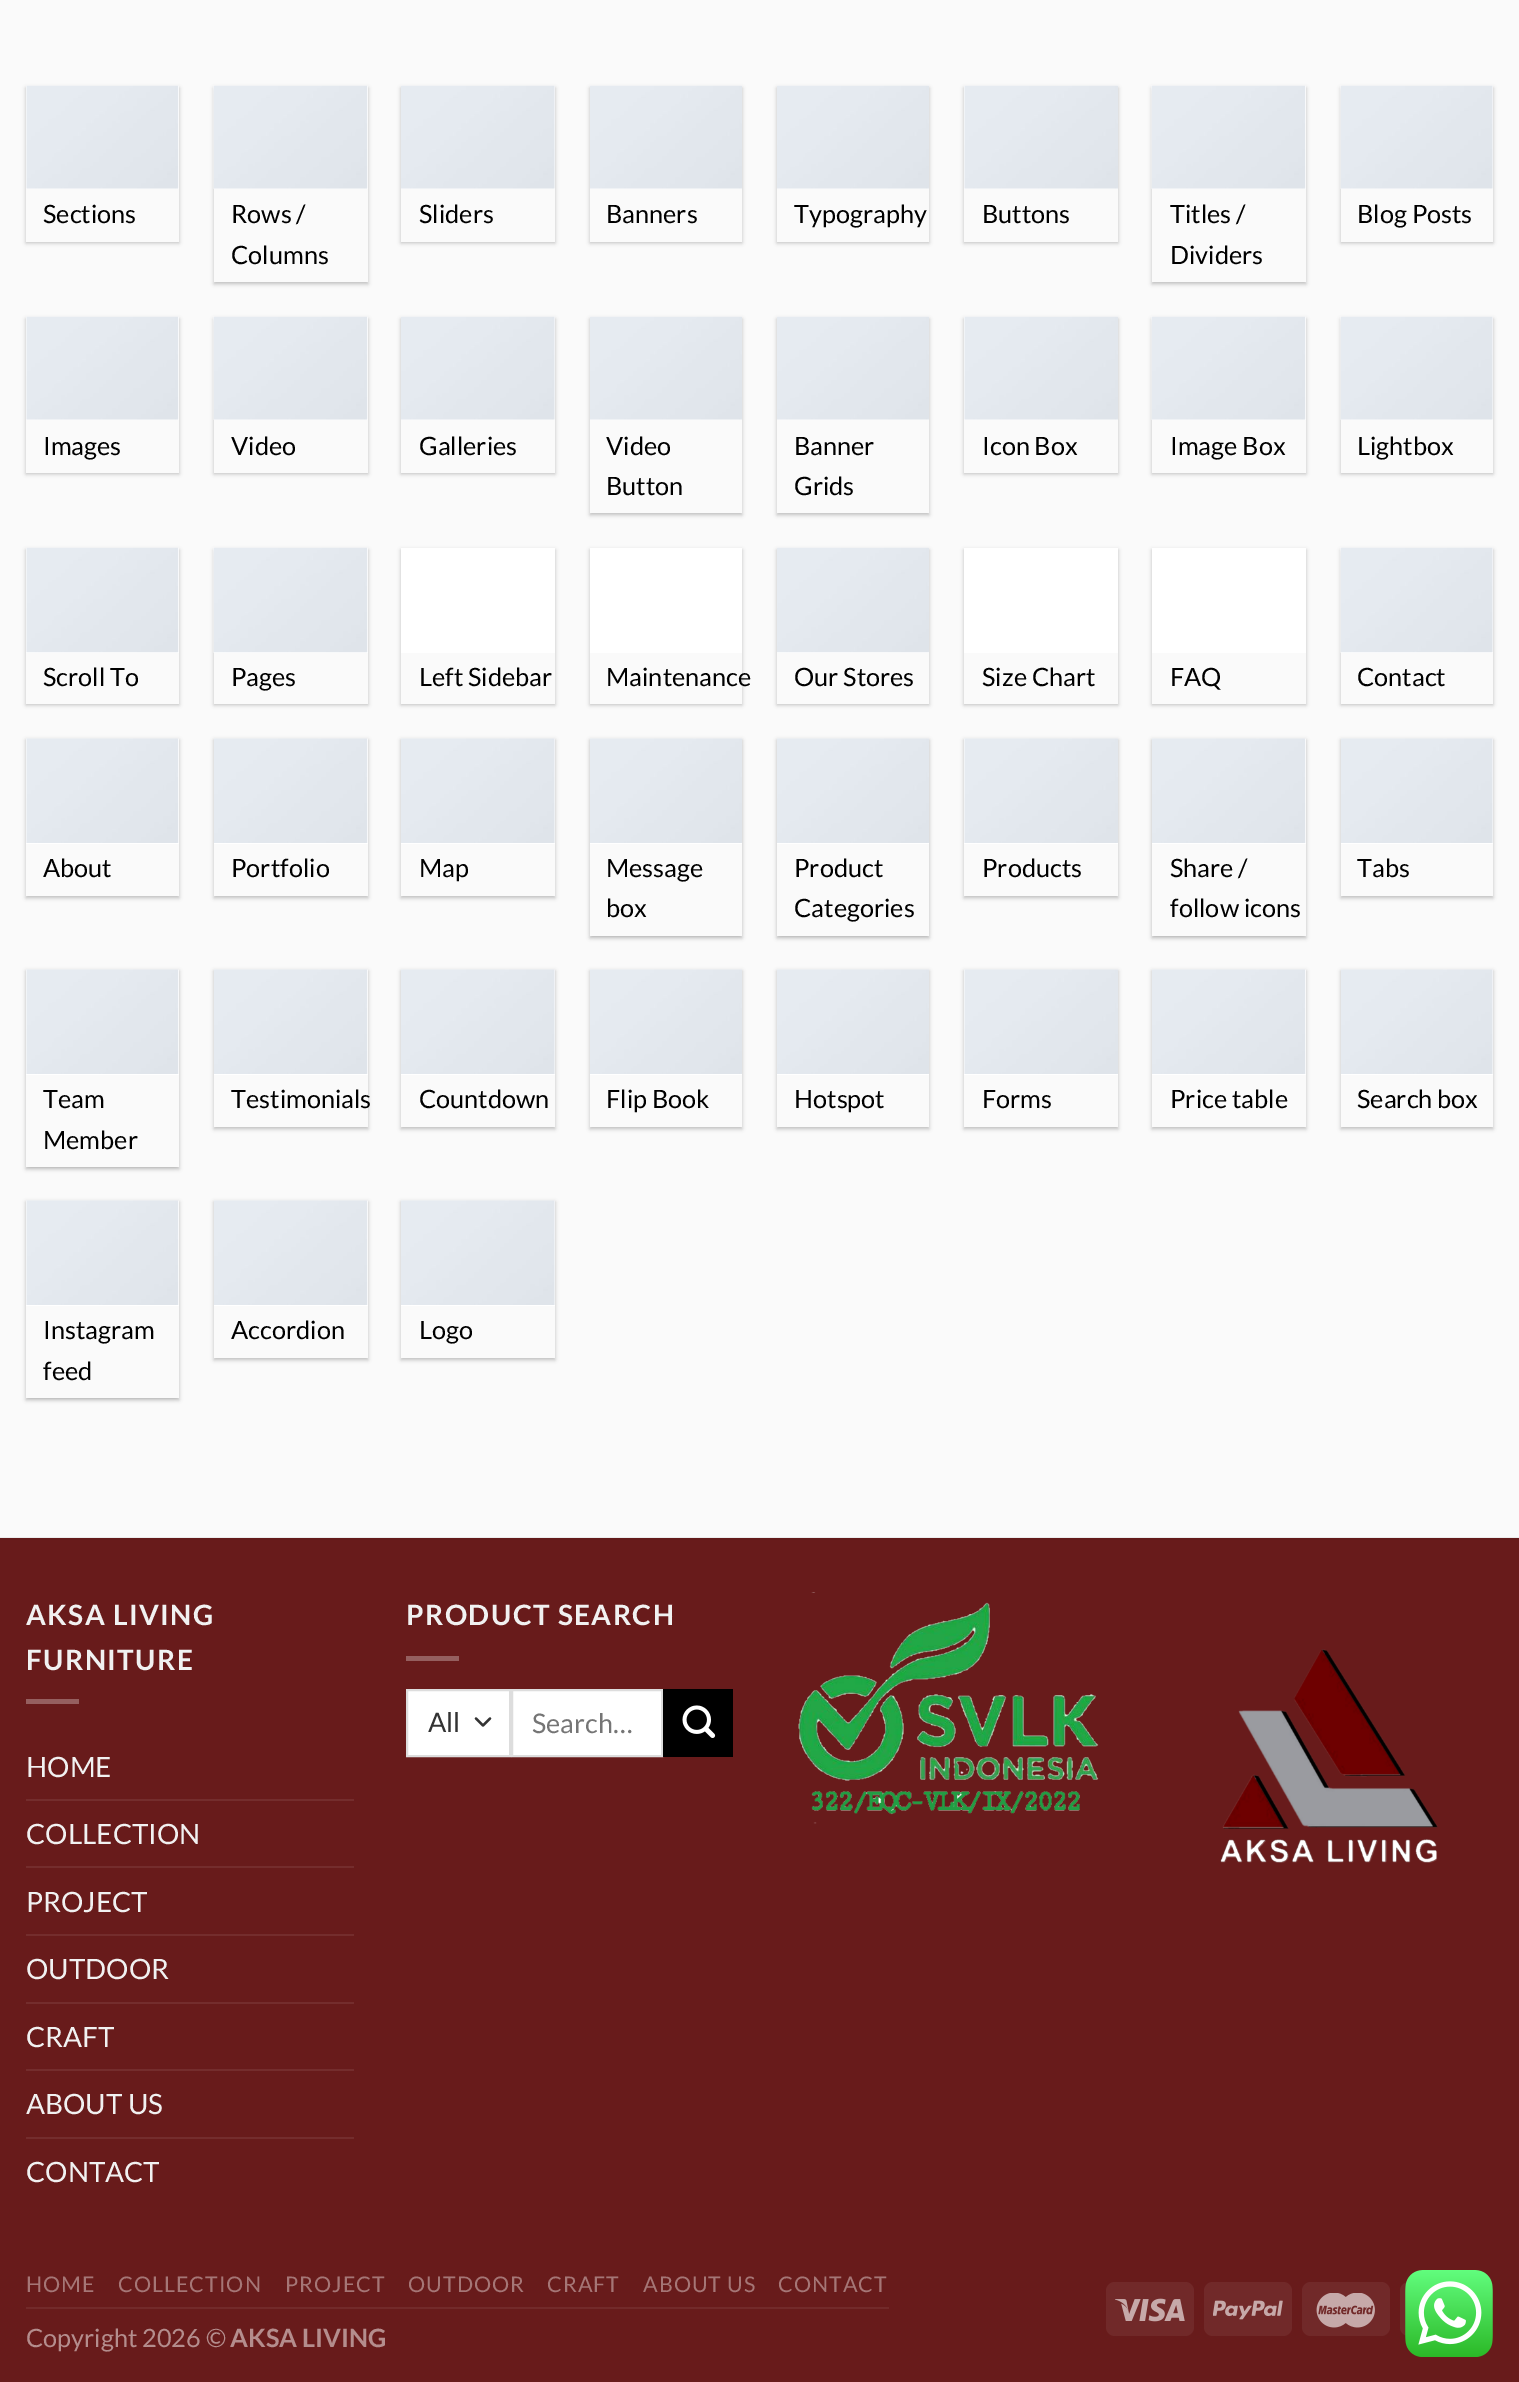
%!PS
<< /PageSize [1519 2382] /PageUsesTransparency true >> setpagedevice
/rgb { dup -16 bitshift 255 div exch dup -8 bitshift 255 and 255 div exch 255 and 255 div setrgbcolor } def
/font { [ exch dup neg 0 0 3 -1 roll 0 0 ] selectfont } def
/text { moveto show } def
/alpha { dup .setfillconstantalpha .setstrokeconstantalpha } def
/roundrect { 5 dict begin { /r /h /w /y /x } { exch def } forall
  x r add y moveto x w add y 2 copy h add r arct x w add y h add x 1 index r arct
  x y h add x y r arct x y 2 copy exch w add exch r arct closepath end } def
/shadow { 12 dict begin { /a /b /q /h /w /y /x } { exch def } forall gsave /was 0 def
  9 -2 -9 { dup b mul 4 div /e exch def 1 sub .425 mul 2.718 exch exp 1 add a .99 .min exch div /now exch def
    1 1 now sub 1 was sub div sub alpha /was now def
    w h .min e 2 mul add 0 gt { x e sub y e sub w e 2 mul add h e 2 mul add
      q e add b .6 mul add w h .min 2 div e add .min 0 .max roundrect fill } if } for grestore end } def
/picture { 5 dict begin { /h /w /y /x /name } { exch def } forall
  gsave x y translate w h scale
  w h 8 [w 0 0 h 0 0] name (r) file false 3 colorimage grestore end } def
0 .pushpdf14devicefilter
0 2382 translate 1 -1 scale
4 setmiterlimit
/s1 { /Lato-Regular 25.25 font 16#000000 rgb } def
/s2 { /Lato-Regular 28 font 16#F1F1F1 rgb } def
/s3 { /Lato-Regular 27 font 16#333333 rgb } def
/s4 { /Lato-Regular 27 font 16#757575 rgb } def
/s5 { /Lato-Regular 25.25 font 16#B48D8D rgb } def
/s6 { /Lato-Bold 25.25 font 16#B48D8D rgb } def
16#FAFAFA rgb
0 0 1519 2382 rectfill
16#000000 rgb
26 88 153 155 0 2 0.24 shadow
16#FFFFFF rgb
26 86 153 103 rectfill
(pic1.raw) 26 85 153 104 picture
16#FAFAFA rgb
26 189 153 53 rectfill
s1
(Sections) 43 223 text
214 88 154 196 0 2 0.24 shadow
16#FFFFFF rgb
214 86 154 103 rectfill
(pic2.raw) 213 85 155 104 picture
16#FAFAFA rgb
214 189 154 93 rectfill
s1
(Rows /) 231 223 text
(Columns) 231 264 text
401 88 154 155 0 2 0.24 shadow
16#FFFFFF rgb
401 86 154 103 rectfill
(pic3.raw) 401 85 154 104 picture
16#FAFAFA rgb
401 189 154 53 rectfill
s1
(Sliders) 419 223 text
590 88 152 155 0 2 0.24 shadow
16#FFFFFF rgb
590 188 152 1 rectfill
(pic4.raw) 590 85 152 104 picture
16#FAFAFA rgb
590 189 152 53 rectfill
s1
(Banners) 606 223 text
777 88 152 155 0 2 0.24 shadow
16#FFFFFF rgb
777 188 152 1 rectfill
(pic5.raw) 777 85 152 104 picture
16#FAFAFA rgb
777 189 152 53 rectfill
s1
(Typography) 794 223 text
964 88 154 155 0 2 0.24 shadow
16#FFFFFF rgb
964 86 154 103 rectfill
(pic6.raw) 964 85 154 104 picture
16#FAFAFA rgb
964 189 154 53 rectfill
s1
(Buttons) 982 223 text
1152 88 154 196 0 2 0.24 shadow
16#FFFFFF rgb
1152 86 154 103 rectfill
(pic2.raw) 1151 85 155 104 picture
16#FAFAFA rgb
1152 189 154 93 rectfill
s1
(Titles /) 1170 223 text
(Dividers) 1170 264 text
1341 88 152 155 0 2 0.24 shadow
16#FFFFFF rgb
1341 86 152 103 rectfill
(pic7.raw) 1340 85 153 104 picture
16#FAFAFA rgb
1341 189 152 53 rectfill
s1
(Blog Posts) 1357 223 text
26 319 153 155 0 2 0.24 shadow
16#FFFFFF rgb
26 317 153 103 rectfill
(pic1.raw) 26 316 153 104 picture
16#FAFAFA rgb
26 420 153 53 rectfill
s1
(Images) 43 455 text
214 319 154 155 0 2 0.24 shadow
16#FFFFFF rgb
214 317 154 103 rectfill
(pic2.raw) 213 316 155 104 picture
16#FAFAFA rgb
214 420 154 53 rectfill
s1
(Video) 231 455 text
401 319 154 155 0 2 0.24 shadow
16#FFFFFF rgb
401 317 154 103 rectfill
(pic3.raw) 401 316 154 104 picture
16#FAFAFA rgb
401 420 154 53 rectfill
s1
(Galleries) 419 455 text
590 319 152 196 0 2 0.24 shadow
16#FFFFFF rgb
590 419 152 1 rectfill
(pic4.raw) 590 316 152 104 picture
16#FAFAFA rgb
590 420 152 93 rectfill
s1
(Video) 606 455 text
(Button) 606 495 text
777 319 152 196 0 2 0.24 shadow
16#FFFFFF rgb
777 419 152 1 rectfill
(pic5.raw) 777 316 152 104 picture
16#FAFAFA rgb
777 420 152 93 rectfill
s1
(Banner) 794 455 text
(Grids) 794 495 text
964 319 154 155 0 2 0.24 shadow
16#FFFFFF rgb
964 317 154 103 rectfill
(pic6.raw) 964 316 154 104 picture
16#FAFAFA rgb
964 420 154 53 rectfill
s1
(Icon Box) 982 455 text
1152 319 154 155 0 2 0.24 shadow
16#FFFFFF rgb
1152 317 154 103 rectfill
(pic2.raw) 1151 316 155 104 picture
16#FAFAFA rgb
1152 420 154 53 rectfill
s1
(Image Box) 1170 455 text
1341 319 152 155 0 2 0.24 shadow
16#FFFFFF rgb
1341 317 152 103 rectfill
(pic7.raw) 1340 316 153 104 picture
16#FAFAFA rgb
1341 420 152 53 rectfill
s1
(Lightbox) 1357 455 text
26 550 153 155 0 2 0.24 shadow
16#FFFFFF rgb
26 548 153 105 rectfill
(pic8.raw) 26 547 153 106 picture
16#FAFAFA rgb
26 653 153 51 rectfill
s1
(Scroll To) 43 686 text
214 550 154 155 0 2 0.24 shadow
16#FFFFFF rgb
214 548 154 105 rectfill
(pic9.raw) 213 547 155 106 picture
16#FAFAFA rgb
214 653 154 51 rectfill
s1
(Pages) 231 686 text
401 550 154 155 0 2 0.24 shadow
16#FFFFFF rgb
401 548 154 105 rectfill
16#FAFAFA rgb
401 653 154 51 rectfill
s1
(Left Sidebar) 419 686 text
590 550 152 155 0 2 0.24 shadow
16#FFFFFF rgb
590 548 152 105 rectfill
16#FAFAFA rgb
590 653 152 51 rectfill
s1
(Maintenance) 606 686 text
777 550 152 155 0 2 0.24 shadow
16#FFFFFF rgb
777 652 152 1 rectfill
(pic10.raw) 777 547 152 106 picture
16#FAFAFA rgb
777 653 152 51 rectfill
s1
(Our Stores) 794 686 text
964 550 154 155 0 2 0.24 shadow
16#FFFFFF rgb
964 548 154 105 rectfill
16#FAFAFA rgb
964 653 154 51 rectfill
s1
(Size Chart) 982 686 text
1152 550 154 155 0 2 0.24 shadow
16#FFFFFF rgb
1152 548 154 105 rectfill
16#FAFAFA rgb
1152 653 154 51 rectfill
s1
(FAQ) 1170 686 text
1341 550 152 155 0 2 0.24 shadow
16#FFFFFF rgb
1341 548 152 105 rectfill
(pic11.raw) 1340 547 153 106 picture
16#FAFAFA rgb
1341 653 152 51 rectfill
s1
(Contact) 1357 686 text
26 740 153 158 0 2 0.24 shadow
16#FFFFFF rgb
26 739 153 105 rectfill
(pic12.raw) 26 738 153 105 picture
16#FAFAFA rgb
26 844 153 52 rectfill
s1
(About) 43 877 text
214 740 154 158 0 2 0.24 shadow
16#FFFFFF rgb
214 739 154 105 rectfill
(pic13.raw) 214 738 154 105 picture
16#FAFAFA rgb
214 844 154 52 rectfill
s1
(Portfolio) 231 877 text
401 740 154 158 0 2 0.24 shadow
16#FFFFFF rgb
401 739 154 105 rectfill
(pic14.raw) 401 738 154 105 picture
16#FAFAFA rgb
401 844 154 52 rectfill
s1
(Map) 419 877 text
590 740 152 198 0 2 0.24 shadow
593 744 146 191 0 2.5 0.12 shadow
16#FFFFFF rgb
590 843 152 1 rectfill
(pic15.raw) 590 738 152 105 picture
16#FAFAFA rgb
590 844 152 92 rectfill
s1
(Message) 606 877 text
(box) 606 917 text
777 740 152 198 0 2 0.24 shadow
781 744 145 191 0 2.5 0.12 shadow
16#FFFFFF rgb
777 843 152 1 rectfill
(pic16.raw) 777 738 152 105 picture
16#FAFAFA rgb
777 844 152 92 rectfill
s1
(Product) 794 877 text
(Categories) 794 917 text
964 740 154 158 0 2 0.24 shadow
16#FFFFFF rgb
964 739 154 105 rectfill
(pic17.raw) 964 738 154 105 picture
16#FAFAFA rgb
964 844 154 52 rectfill
s1
(Products) 982 877 text
1152 740 154 198 0 2 0.24 shadow
1155 744 147 191 0 2.5 0.12 shadow
16#FFFFFF rgb
1152 739 154 105 rectfill
(pic13.raw) 1152 738 154 105 picture
16#FAFAFA rgb
1152 844 154 92 rectfill
s1
(Share /) 1170 877 text
(follow icons) 1170 917 text
1341 740 152 158 0 2 0.24 shadow
16#FFFFFF rgb
1341 739 152 105 rectfill
(pic18.raw) 1341 738 152 105 picture
16#FAFAFA rgb
1341 844 152 52 rectfill
s1
(Tabs) 1357 877 text
26 971 153 198 0 2 0.24 shadow
30 975 145 191 0 2.5 0.12 shadow
16#FFFFFF rgb
26 970 153 105 rectfill
(pic12.raw) 26 969 153 105 picture
16#FAFAFA rgb
26 1075 153 92 rectfill
s1
(Team) 43 1108 text
(Member) 43 1149 text
214 971 154 158 0 2 0.24 shadow
16#FFFFFF rgb
214 970 154 105 rectfill
(pic19.raw) 214 969 154 105 picture
16#FAFAFA rgb
214 1075 154 52 rectfill
s1
(Testimonials) 231 1108 text
401 971 154 158 0 2 0.24 shadow
16#FFFFFF rgb
401 970 154 105 rectfill
(pic14.raw) 401 969 154 105 picture
16#FAFAFA rgb
401 1075 154 52 rectfill
s1
(Countdown) 419 1108 text
590 971 152 158 0 2 0.24 shadow
16#FFFFFF rgb
590 1074 152 1 rectfill
(pic15.raw) 590 969 152 105 picture
16#FAFAFA rgb
590 1075 152 52 rectfill
s1
(Flip Book) 606 1108 text
777 971 152 158 0 2 0.24 shadow
16#FFFFFF rgb
777 1074 152 1 rectfill
(pic16.raw) 777 969 152 105 picture
16#FAFAFA rgb
777 1075 152 52 rectfill
s1
(Hotspot) 794 1108 text
964 971 154 158 0 2 0.24 shadow
16#FFFFFF rgb
964 970 154 105 rectfill
(pic20.raw) 964 969 154 105 picture
16#FAFAFA rgb
964 1075 154 52 rectfill
s1
(Forms) 982 1108 text
1152 971 154 158 0 2 0.24 shadow
16#FFFFFF rgb
1152 970 154 105 rectfill
(pic19.raw) 1152 969 154 105 picture
16#FAFAFA rgb
1152 1075 154 52 rectfill
s1
(Price table) 1170 1108 text
1341 971 152 158 0 2 0.24 shadow
16#FFFFFF rgb
1341 970 152 105 rectfill
(pic18.raw) 1341 969 152 105 picture
16#FAFAFA rgb
1341 1075 152 52 rectfill
s1
(Search box) 1357 1108 text
26 1202 153 198 0 2 0.24 shadow
30 1206 145 191 0 2.5 0.12 shadow
16#FFFFFF rgb
26 1201 153 105 rectfill
(pic12.raw) 26 1200 153 105 picture
16#FAFAFA rgb
26 1306 153 92 rectfill
s1
(Instagram) 43 1339 text
(feed) 43 1380 text
214 1202 154 158 0 2 0.24 shadow
16#FFFFFF rgb
214 1201 154 105 rectfill
(pic19.raw) 214 1200 154 105 picture
16#FAFAFA rgb
214 1306 154 52 rectfill
s1
(Accordion) 231 1339 text
401 1202 154 158 0 2 0.24 shadow
16#FFFFFF rgb
401 1201 154 105 rectfill
(pic14.raw) 401 1200 154 105 picture
16#FAFAFA rgb
401 1306 154 52 rectfill
s1
(Logo) 419 1339 text
16#ECECEC rgb
0 1537 1519 1 rectfill
16#681B1B rgb
0 1540 1519 842 rectfill
16#631A1A rgb
0 1538 1519 2 rectfill
/Lato-Bold 28 font
16#F1F1F1 rgb
26 1625 moveto 1.4 0 (AKSA LIVING) ashow
26 1670 moveto 1.4 0 (FURNITURE) ashow
16#955F5F rgb
26 1699 53 5 rectfill
s2
(HOME) 26 1777 text
16#742D2D rgb
26 1799 328 2 rectfill
s2
(COLLECTION) 26 1844 text
16#742D2D rgb
26 1866 328 2 rectfill
s2
(PROJECT) 26 1912 text
16#742D2D rgb
26 1934 328 2 rectfill
s2
(OUTDOOR) 26 1979 text
16#742D2D rgb
26 2002 328 2 rectfill
s2
(CRAFT) 26 2047 text
16#742D2D rgb
26 2069 328 2 rectfill
s2
(ABOUT US) 26 2114 text
16#742D2D rgb
26 2137 328 2 rectfill
s2
(CONTACT) 26 2182 text
/Lato-Bold 28 font
406 1625 moveto 1.4 0 (PRODUCT SEARCH) ashow
16#955F5F rgb
406 1656 53 5 rectfill
16#FFFFFF rgb
408 1691 101 64 rectfill
16#333333 rgb
2.3 setlinewidth
1 setlinecap
1 setlinejoin
476 1718.5 moveto 483 1725.5 lineto 490 1718.5 lineto stroke
16#DDDDDD rgb
2 setlinewidth
0 setlinecap
0 setlinejoin
407 1690 103 66 rectstroke
s3
(All) 428 1732 text
16#FFFFFF rgb
512 1690 moveto 662 1690 lineto 662 1756 lineto 512 1756 lineto closepath gsave fill grestore
16#DDDDDD rgb
stroke
s4
(Search…) 532 1733 text
16#000000 rgb
663 1689 70 68 rectfill
(pic21.raw) 682 1705 34 33 picture
(pic22.raw) 798 1592 301 232 picture
(pic23.raw) 1220 1649 218 214 picture
16#722A2A rgb
26 2307 863 2 rectfill
/Lato-Regular 21.5 font
16#A57676 rgb
26 2292 moveto 1 0 (HOME) ashow
118 2292 moveto 1 0 (COLLECTION) ashow
285 2292 moveto 1 0 (PROJECT) ashow
408 2292 moveto 1 0 (OUTDOOR) ashow
547 2292 moveto 1 0 (CRAFT) ashow
643 2292 moveto 1 0 (ABOUT US) ashow
778 2292 moveto 1 0 (CONTACT) ashow
s5
(Copyright 2026 ©) 26 2347 text
s6
(AKSA LIVING) 230 2347 text
16#712929 rgb
1106 2282 88 54 9 roundrect fill
(pic24.raw) 1115 2298 70 24 picture
1204 2282 88 54 9 roundrect fill
(pic25.raw) 1213 2300 70 20 picture
1302 2282 88 54 9 roundrect fill
(pic26.raw) 1316 2293 59 35 picture
1400 2282 88 54 9 roundrect fill
(pic27.raw) 1405 2270 88 87 picture
.poppdf14devicefilter showpage
